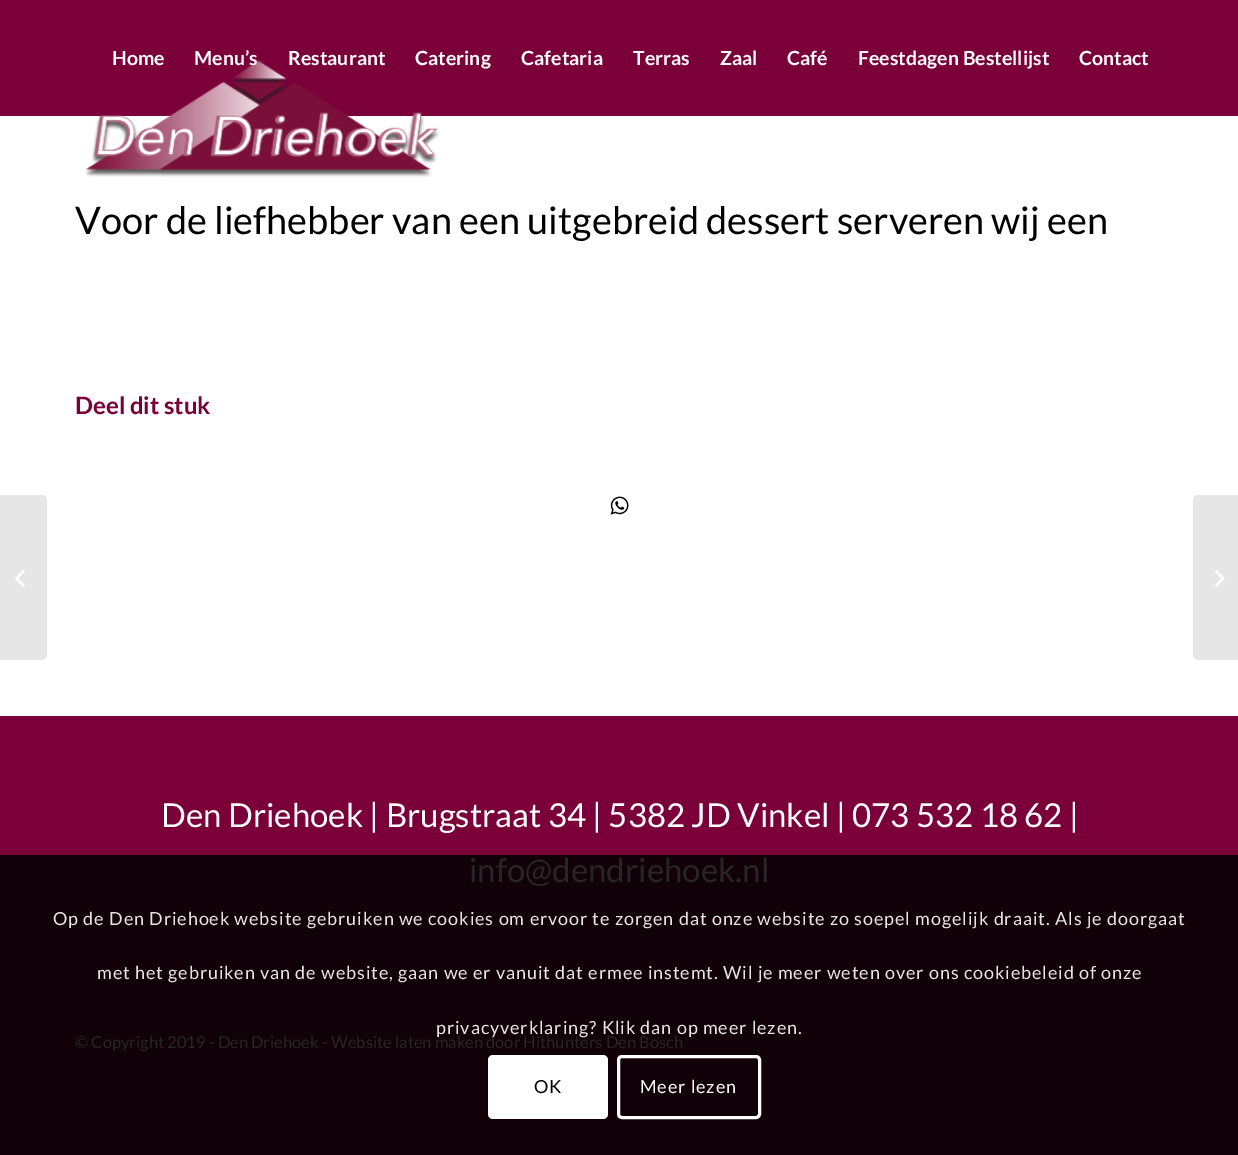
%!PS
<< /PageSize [1238 1155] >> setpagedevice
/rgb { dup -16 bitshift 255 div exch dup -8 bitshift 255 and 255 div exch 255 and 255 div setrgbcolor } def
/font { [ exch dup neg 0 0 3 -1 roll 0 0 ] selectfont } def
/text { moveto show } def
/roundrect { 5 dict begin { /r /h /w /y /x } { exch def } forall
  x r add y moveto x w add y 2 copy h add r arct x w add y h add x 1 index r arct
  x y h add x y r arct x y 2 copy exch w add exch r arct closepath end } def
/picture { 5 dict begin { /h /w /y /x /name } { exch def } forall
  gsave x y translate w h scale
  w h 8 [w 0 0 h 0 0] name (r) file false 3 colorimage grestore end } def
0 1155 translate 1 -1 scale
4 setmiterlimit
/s1 { /Lato-Bold 19.5 font 16#FFFFFF rgb } def
/s2 { /Lato-Regular 37.95 font 16#000000 rgb } def
/s3 { /Lato-Bold 24 font 16#7B0039 rgb } def
/s4 { /Lato-Regular 33 font 16#FFFFFF rgb } def
/s5 { /Lato-Regular 33 font 16#262626 rgb } def
/s6 { /Lato-Regular 16.5 font 16#262626 rgb } def
16#7B0039 rgb
0 0 1238 1155 rectfill
16#120009 rgb
0 855 1238 300 rectfill
16#FFFFFF rgb
0 116 1238 600 rectfill
(pic1.raw) 85 60 354 117 picture
s1
(Home) 112 65 text
(Menu’s) 194 65 text
(Restaurant) 288 65 text
(Catering) 415 65 text
(Cafetaria) 521 65 text
(Terras) 633 65 text
(Zaal) 720 65 text
(Café) 787 65 text
(Feestdagen Bestellijst) 858 65 text
(Contact) 1079 65 text
16#E6E6E6 rgb
0 495 moveto 41 495 lineto 44.5 495 47 497.5 47 501 curveto 47 654 lineto 47 657.5 44.5 660 41 660 curveto 0 660 lineto closepath fill
(pic2.raw) 15 570 10 17 picture
s2
(Voor de liefhebber van een uitgebreid dessert serveren wij een) 75 234 text
s3
(Deel dit stuk) 75 414 text
(pic3.raw) 610 496 19 19 picture
s4
(Den Driehoek | Brugstraat 34 | 5382 JD Vinkel | 073 532 18 62 |) 161 827 text
s5
(info@dendriehoek.nl) 469 882 text
s6
(© Copyright 2019 - Den Driehoek -) 75 1048 text
(Website laten maken) 331 1048 text
(door Hithunters Den Bosch) 486 1048 text
16#E6E6E6 rgb
1199 495 moveto 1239 495 lineto 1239 660 lineto 1199 660 lineto 1195.5 660 1193 657.5 1193 654 curveto 1193 501 lineto 1193 497.5 1195.5 495 1199 495 curveto closepath fill
(pic4.raw) 1215 570 10 17 picture
/Lato-Regular 18 font
16#E7E6E6 rgb
53 925 moveto 0.9 0 (Op de Den Driehoek website gebruiken we cookies om ervoor te zorgen dat onze website zo soepel mogelijk draait. Als je doorgaat) ashow
97 979 moveto 0.9 0 (met het gebruiken van de website, gaan we er vanuit dat ermee instemt. Wil je meer weten over ons cookiebeleid of onze) ashow
436 1034 moveto 0.9 0 (privacyverklaring? Klik dan op meer lezen.) ashow
16#FFFFFF rgb
488 1055 120 64 5 roundrect fill
16#000000 rgb
534 1093 moveto 0.9 0 (OK) ashow
16#FFFFFF rgb
3 setlinewidth
618.5 1056.5 141 61 3.5 roundrect stroke
640 1093 moveto 0.9 0 (Meer lezen) ashow
showpage
